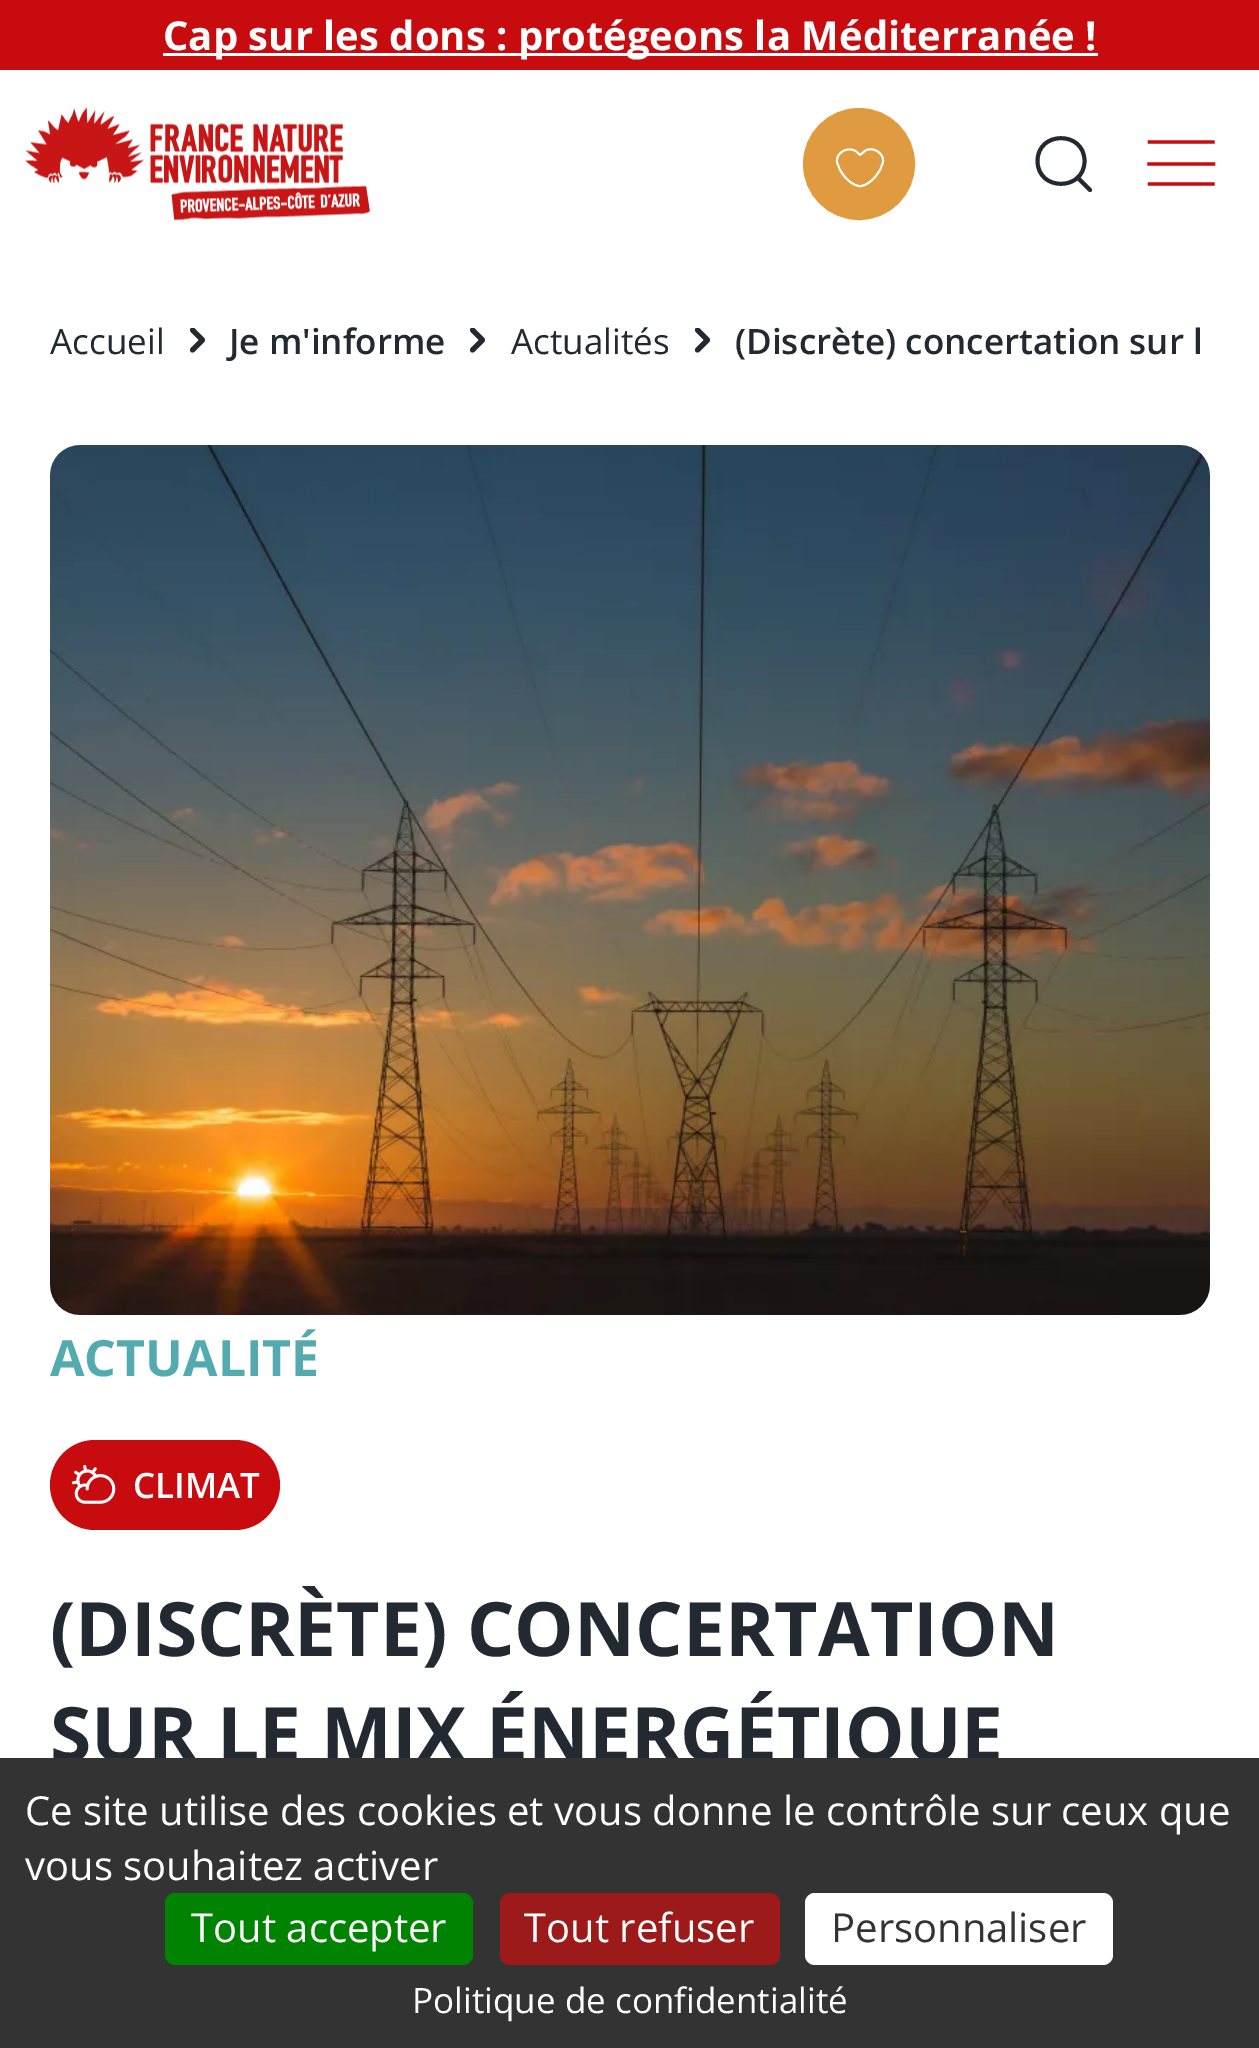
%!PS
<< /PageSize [1259 2048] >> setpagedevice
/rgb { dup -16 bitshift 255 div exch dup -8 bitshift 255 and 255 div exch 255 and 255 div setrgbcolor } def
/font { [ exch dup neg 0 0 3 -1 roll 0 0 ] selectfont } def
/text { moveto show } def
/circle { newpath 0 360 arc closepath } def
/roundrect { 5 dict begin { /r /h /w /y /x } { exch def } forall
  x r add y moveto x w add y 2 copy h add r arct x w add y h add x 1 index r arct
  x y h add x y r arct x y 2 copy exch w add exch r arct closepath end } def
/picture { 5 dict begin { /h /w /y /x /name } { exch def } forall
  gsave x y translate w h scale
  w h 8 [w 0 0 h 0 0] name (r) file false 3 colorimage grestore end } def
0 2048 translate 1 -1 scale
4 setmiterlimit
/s1 { /OpenSans-Bold 40 font 16#FFFFFF rgb } def
/s2 { /OpenSans-Regular 35 font 16#232931 rgb } def
/s3 { /OpenSans-SemiBold 35 font 16#232931 rgb } def
/s4 { /OpenSans-Bold 50 font 16#53ABAF rgb } def
/s5 { /OpenSans-SemiBold 35 font 16#FFFFFF rgb } def
/s6 { /OpenSans-Bold 75 font 16#232931 rgb } def
/s7 { /OpenSans-Regular 40 font 16#FFFFFF rgb } def
/s8 { /OpenSans-Regular 40 font 16#333333 rgb } def
/s9 { /OpenSans-Regular 35 font 16#FFFFFF rgb } def
16#FFFFFF rgb
0 0 1259 2048 rectfill
16#C80B0E rgb
0 0 1259 70 rectfill
16#FFFFFF rgb
163 53 935 3 rectfill
s1
(Cap sur les dons : protégeons la Méditerranée !) 163 50 text
(pic1.raw) 25 107 345 114 picture
16#E09A3F rgb
859 164 53.5 circle gsave fill grestore
5 setlinewidth
stroke
16#FFFFFF rgb
1.9 setlinewidth
1 setlinecap
1 setlinejoin
857.5 152.5 moveto 860 155 lineto 865.5 150.5 lineto 872.5 146.5 884 152.5 883 161.5 curveto 882 167.5 879 172.5 875 177 curveto 871.5 181 866 186 860 186 curveto 854 186 848.5 181 845 177 curveto 841 172.5 838 167.5 837 161.5 curveto 836 151 850.5 145.5 857.5 152.5 curveto closepath stroke
16#232931 rgb
3.9 setlinewidth
0 setlinejoin
1090 190 moveto 1077.5 177.5 lineto 1084.5 161 moveto 1084.5 191.5 1037.5 191.5 1037.5 161 curveto 1037.5 130.5 1084.5 130.5 1084.5 161 curveto closepath stroke
16#C80B0E rgb
3.3 setlinewidth
2 setlinecap
1 setlinejoin
1213 142 moveto 1149.5 142 lineto 1213.5 164 moveto 1149 164 lineto 1213 184 moveto 1149.5 184 lineto stroke
s2
(Accueil) 50 354 text
gsave
190 328 15 25 rectclip
5 setlinewidth
1 setlinecap
192.5 350 moveto 202.5 340 lineto 192.5 330 lineto stroke
grestore
s3
(Je m'informe) 229 354 text
gsave
470 328 15 25 rectclip
5 setlinewidth
1 setlinecap
472.5 350 moveto 482.5 340 lineto 472.5 330 lineto stroke
grestore
s2
(Actualités) 511 354 text
gsave
695 328 15 25 rectclip
5 setlinewidth
1 setlinecap
697.5 350 moveto 707.5 340 lineto 697.5 330 lineto stroke
grestore
s3
(\(Discrète\) concertation sur l) 735 354 text
(pic2.raw) 50 445 1160 870 picture
s4
(ACTUALITÉ) 50 1376 text
16#C80B0E rgb
50 1440 230 90 45 roundrect fill
(pic3.raw) 71 1464 45 40 picture
s5
(CLIMAT) 133 1498 text
s6
(\(DISCRÈTE\) CONCERTATION) 50 1656 text
(SUR LE MIX ÉNERGÉTIQUE) 50 1761 text
16#333333 rgb
0 1758 1259 290 rectfill
s7
(Ce site utilise des cookies et vous donne le contrôle sur ceux que) 25 1825 text
(vous souhaitez activer) 25 1880 text
16#008300 rgb
165 1893 308 72 10 roundrect fill
s7
(Tout accepter) 191 1942 text
16#9C1A1A rgb
500 1893 280 72 10 roundrect fill
s7
(Tout refuser) 524 1942 text
805 1893 308 72 10 roundrect fill
s8
(Personnaliser) 831 1942 text
s9
(Politique de confidentialité) 412 2013 text
showpage
